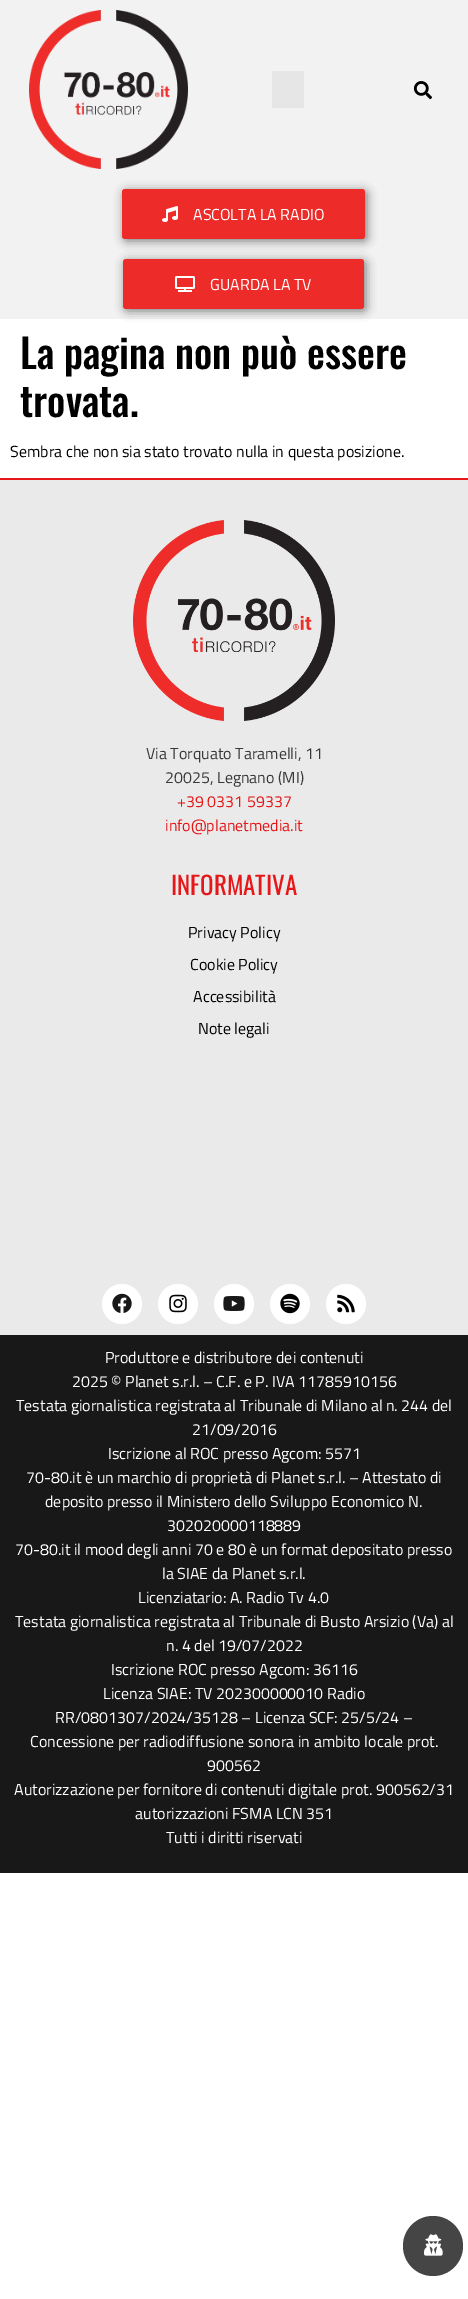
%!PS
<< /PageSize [468 2299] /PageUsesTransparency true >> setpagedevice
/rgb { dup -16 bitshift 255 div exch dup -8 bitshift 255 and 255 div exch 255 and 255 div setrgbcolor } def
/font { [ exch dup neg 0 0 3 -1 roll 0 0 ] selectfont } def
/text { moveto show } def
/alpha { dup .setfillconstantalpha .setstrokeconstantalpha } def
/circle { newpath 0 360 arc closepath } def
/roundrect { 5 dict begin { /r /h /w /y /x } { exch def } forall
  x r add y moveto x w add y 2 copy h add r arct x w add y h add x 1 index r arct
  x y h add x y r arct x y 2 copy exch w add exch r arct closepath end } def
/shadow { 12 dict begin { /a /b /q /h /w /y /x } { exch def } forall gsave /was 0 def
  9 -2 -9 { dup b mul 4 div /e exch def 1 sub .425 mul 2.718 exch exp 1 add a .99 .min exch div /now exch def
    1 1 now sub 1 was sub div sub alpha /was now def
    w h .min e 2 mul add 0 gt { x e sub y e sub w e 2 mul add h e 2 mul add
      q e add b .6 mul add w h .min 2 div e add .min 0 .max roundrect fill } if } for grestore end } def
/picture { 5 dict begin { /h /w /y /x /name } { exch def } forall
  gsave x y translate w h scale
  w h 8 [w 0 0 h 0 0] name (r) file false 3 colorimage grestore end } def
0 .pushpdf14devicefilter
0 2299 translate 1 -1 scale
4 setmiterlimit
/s1 { /TitilliumWeb-Regular 16 font 16#FFFFFF rgb } def
/s2 { /Oswald-Medium 40 font 16#000000 rgb } def
/s3 { /TitilliumWeb-Regular 16 font 16#000000 rgb } def
/s4 { /TitilliumWeb-Regular 16 font 16#393939 rgb } def
/s5 { /TitilliumWeb-Regular 16 font 16#E51718 rgb } def
/s6 { /Oswald-Regular 25 font 16#E51718 rgb } def
16#FFFFFF rgb
0 0 468 2299 rectfill
16#F2F2F2 rgb
0 0 468 319 rectfill
(pic1.raw) 29 10 159 159 picture
16#E6E6E6 rgb
272 71 32 37 rectfill
(pic2.raw) 413 81 19 19 picture
16#000000 rgb
124 191 243 50 3 5 0.5 shadow
16#ED2C29 rgb
122 189 243 50 3 roundrect fill
(pic3.raw) 162 206 16 16 picture
s1
(ASCOLTA LA RADIO) 193 220 text
16#000000 rgb
125 261 241 50 3 5 0.5 shadow
16#ED2C29 rgb
123 259 241 50 3 roundrect fill
(pic4.raw) 175 276 20 16 picture
s1
(GUARDA LA TV) 210 290 text
s2
(La pagina non può essere) 20 369 text
(trovata.) 20 417 text
s3
(Sembra che non sia stato trovato nulla in questa posizione.) 10 457 text
16#EAEAEA rgb
0 480 468 855 rectfill
16#E51718 rgb
0 478 468 2 rectfill
(pic5.raw) 133 520 202 201 picture
s4
(Via Torquato Taramelli, 11) 146 759 text
(20025, Legnano \(MI\)) 165 783 text
s5
(+39 0331 59337) 177 807 text
(info@planetmedia.it) 165 831 text
s6
(INFORMATIVA) 171 895 text
s3
(Privacy Policy) 188 938 text
(Cookie Policy) 190 970 text
(Accessibilità) 193 1002 text
(Note legali) 198 1034 text
16#FFFFFF rgb
122 1304 20 circle fill
(pic6.raw) 112 1293 20 20 picture
178 1304 20 circle fill
(pic7.raw) 169 1294 18 19 picture
234 1304 20 circle fill
(pic8.raw) 223 1296 22 15 picture
290 1304 20 circle fill
(pic9.raw) 280 1293 20 21 picture
346 1304 20 circle fill
(pic10.raw) 337 1294 18 19 picture
16#181818 rgb
0 1335 468 538 rectfill
s1
(Produttore e distributore dei contenuti) 105 1363 text
(2025 © Planet s.r.l. – C.F. e P. IVA 11785910156) 72 1387 text
(Testata giornalistica registrata al Tribunale di Milano al n. 244 del) 16 1411 text
(21/09/2016) 192 1435 text
(Iscrizione al ROC presso Agcom: 5571) 108 1459 text
(70-80.it è un marchio di proprietà di Planet s.r.l. – Attestato di) 26 1483 text
(deposito presso il Ministero dello Sviluppo Economico N.) 45 1507 text
(302020000118889) 167 1531 text
(70-80.it il mood degli anni 70 e 80 è un format depositato presso) 15 1555 text
(la SIAE da Planet s.r.l.) 162 1579 text
(Licenziatario: A. Radio Tv 4.0) 138 1603 text
(Testata giornalistica registrata al Tribunale di Busto Arsizio \(Va\) al) 15 1627 text
(n. 4 del 19/07/2022) 166 1651 text
(Iscrizione ROC presso Agcom: 36116) 111 1675 text
(Licenza SIAE: TV 202300000010 Radio) 103 1699 text
(RR/0801307/2024/35128 – Licenza SCF: 25/5/24 –) 55 1723 text
(Concessione per radiodiffusione sonora in ambito locale prot.) 30 1747 text
(900562) 207 1771 text
(Autorizzazione per fornitore di contenuti digitale prot. 900562/31) 14 1795 text
(autorizzazioni FSMA LCN 351) 135 1819 text
(Tutti i diritti riservati) 166 1843 text
16#454545 rgb
433 2246 30 circle fill
(pic11.raw) 424 2234 19 22 picture
.poppdf14devicefilter showpage
